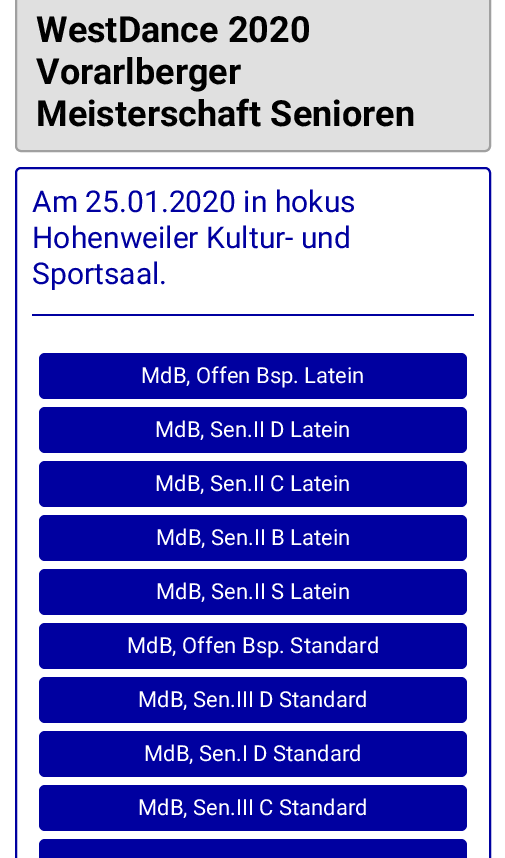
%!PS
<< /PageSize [505 858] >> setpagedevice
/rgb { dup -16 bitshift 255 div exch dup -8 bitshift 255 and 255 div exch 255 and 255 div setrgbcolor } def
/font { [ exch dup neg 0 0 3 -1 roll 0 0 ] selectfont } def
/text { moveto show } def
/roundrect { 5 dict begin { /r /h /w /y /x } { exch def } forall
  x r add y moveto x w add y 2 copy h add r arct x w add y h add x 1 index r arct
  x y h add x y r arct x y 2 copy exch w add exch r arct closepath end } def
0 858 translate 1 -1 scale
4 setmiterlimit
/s1 { /Roboto-Bold 36 font 16#000000 rgb } def
/s2 { /Roboto-Regular 30 font 16#0000A0 rgb } def
/s3 { /Roboto-Regular 22 font 16#FFFFFF rgb } def
16#FFFFFF rgb
0 0 505 858 rectfill
16#E0E0E0 rgb
16 -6 474 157 5 roundrect gsave fill grestore
16#A0A0A0 rgb
2 setlinewidth
stroke
s1
(WestDance 2020) 36 42 text
(Vorarlberger) 36 84 text
(Meisterschaft Senioren) 36 126 text
16#0000A0 rgb
16 168 474 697 5 roundrect stroke
s2
(Am 25.01.2020 in hokus) 32 212 text
(Hohenweiler Kultur- und) 32 248 text
(Sportsaal.) 32 284 text
32 314 442 2 rectfill
39 353 428 46 6 roundrect fill
s3
(MdB, Offen Bsp. Latein) 141 383 text
16#0000A0 rgb
39 407 428 46 6 roundrect fill
s3
(MdB, Sen.II D Latein) 155 437 text
16#0000A0 rgb
39 461 428 46 6 roundrect fill
s3
(MdB, Sen.II C Latein) 155 491 text
16#0000A0 rgb
39 515 428 46 6 roundrect fill
s3
(MdB, Sen.II B Latein) 156 545 text
16#0000A0 rgb
39 569 428 46 6 roundrect fill
s3
(MdB, Sen.II S Latein) 156 599 text
16#0000A0 rgb
39 623 428 46 6 roundrect fill
s3
(MdB, Offen Bsp. Standard) 127 653 text
16#0000A0 rgb
39 677 428 46 6 roundrect fill
s3
(MdB, Sen.III D Standard) 138 707 text
16#0000A0 rgb
39 731 428 46 6 roundrect fill
s3
(MdB, Sen.I D Standard) 144 761 text
16#0000A0 rgb
39 785 428 46 6 roundrect fill
s3
(MdB, Sen.III C Standard) 138 815 text
16#0000A0 rgb
39 839 428 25 6 roundrect fill
showpage
